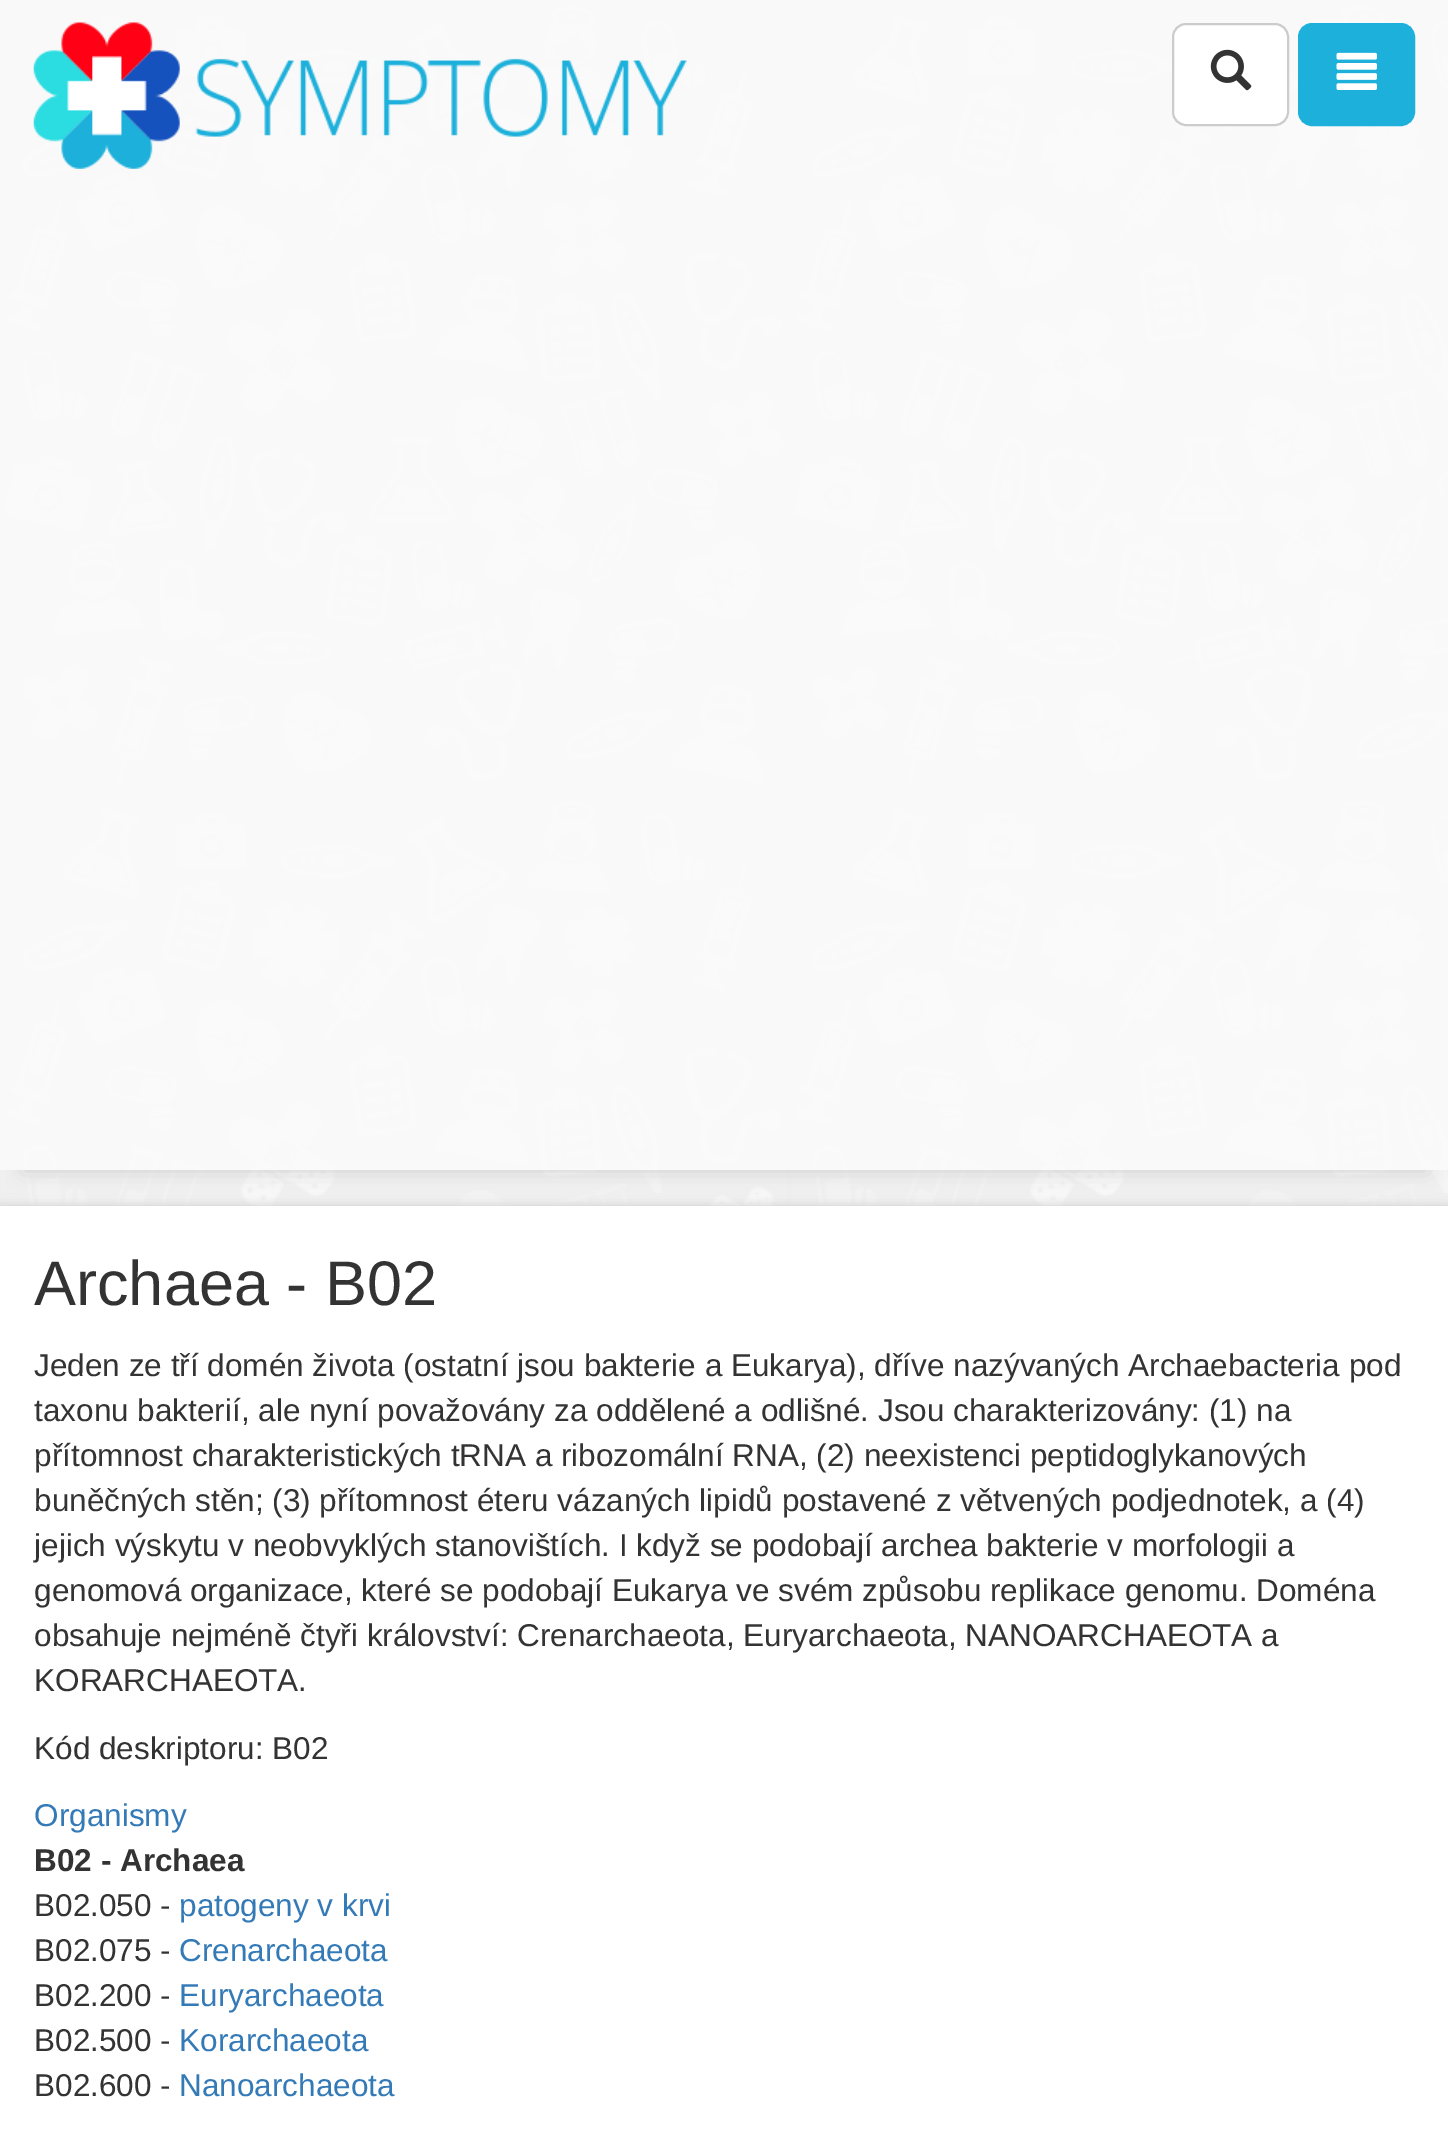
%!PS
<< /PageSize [1448 2156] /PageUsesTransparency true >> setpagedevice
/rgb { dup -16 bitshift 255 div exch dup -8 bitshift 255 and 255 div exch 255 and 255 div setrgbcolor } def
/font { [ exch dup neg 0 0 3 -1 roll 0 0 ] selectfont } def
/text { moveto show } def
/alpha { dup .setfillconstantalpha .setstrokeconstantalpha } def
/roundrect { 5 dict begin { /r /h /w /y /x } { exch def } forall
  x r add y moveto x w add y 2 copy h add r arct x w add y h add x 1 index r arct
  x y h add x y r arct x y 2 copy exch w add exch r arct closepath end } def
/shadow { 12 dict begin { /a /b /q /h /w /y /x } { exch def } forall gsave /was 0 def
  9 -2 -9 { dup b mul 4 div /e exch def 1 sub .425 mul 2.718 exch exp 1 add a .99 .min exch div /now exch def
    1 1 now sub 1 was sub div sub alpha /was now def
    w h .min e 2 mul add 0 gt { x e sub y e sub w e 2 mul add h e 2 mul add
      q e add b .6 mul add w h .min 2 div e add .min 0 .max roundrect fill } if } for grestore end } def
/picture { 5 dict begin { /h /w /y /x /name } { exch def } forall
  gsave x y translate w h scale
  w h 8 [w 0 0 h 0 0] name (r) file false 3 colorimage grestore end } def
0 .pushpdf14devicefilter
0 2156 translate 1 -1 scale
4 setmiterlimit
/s1 { /LiberationSans-Regular 63 font 16#333333 rgb } def
/s2 { /LiberationSans-Regular 31.5 font 16#333333 rgb } def
/s3 { /LiberationSans-Regular 31.5 font 16#337AB7 rgb } def
/s4 { /LiberationSans-Bold 31.5 font 16#333333 rgb } def
16#FFFFFF rgb
0 0 1448 2156 rectfill
(pic1.raw) 0 0 1448 1206 picture
gsave
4 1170 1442 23 rectclip
16#CCCCCC rgb
23 45 1404 1125 0 11 1 shadow
grestore
0.95 alpha
16#FAFAFA rgb
0 0 1448 1170 rectfill
1 alpha
(pic2.raw) 33 22 654 147 picture
16#FFFFFF rgb
1173 24 115 101 13 roundrect gsave fill grestore
16#CCCCCC rgb
2 setlinewidth
stroke
(pic3.raw) 1210 49 42 42 picture
16#1CB0DB rgb
1299 24 115 101 13 roundrect gsave fill grestore
stroke
(pic4.raw) 1336 52 41 38 picture
16#CCCCCC rgb
0 1206 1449 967 0 5.5 1 shadow
16#FFFFFF rgb
0 1206 1448 950 rectfill
s1
(Archaea - B02) 34 1305 text
s2
(Jeden ze tří domén života \(ostatní jsou bakterie a Eukarya\), dříve nazývaných Archaebacteria pod) 34 1376 text
(taxonu bakterií, ale nyní považovány za oddělené a odlišné. Jsou charakterizovány: \(1\) na) 34 1421 text
(přítomnost charakteristických tRNA a ribozomální RNA, \(2\) neexistenci peptidoglykanových) 34 1466 text
(buněčných stěn; \(3\) přítomnost éteru vázaných lipidů postavené z větvených podjednotek, a \(4\)) 34 1511 text
(jejich výskytu v neobvyklých stanovištích. I když se podobají archea bakterie v morfologii a) 34 1556 text
(genomová organizace, které se podobají Eukarya ve svém způsobu replikace genomu. Doména) 34 1601 text
(obsahuje nejméně čtyři království: Crenarchaeota, Euryarchaeota, NANOARCHAEOTA a) 34 1646 text
(KORARCHAEOTA.) 34 1691 text
(Kód deskriptoru: B02) 34 1759 text
s3
(Organismy) 34 1826 text
s4
(B02 - Archaea) 34 1871 text
s2
(B02.050 -) 34 1916 text
s3
(patogeny v krvi) 179 1916 text
s2
(B02.075 -) 34 1961 text
s3
(Crenarchaeota) 179 1961 text
s2
(B02.200 -) 34 2006 text
s3
(Euryarchaeota) 179 2006 text
s2
(B02.500 -) 34 2051 text
s3
(Korarchaeota) 179 2051 text
s2
(B02.600 -) 34 2096 text
s3
(Nanoarchaeota) 179 2096 text
.poppdf14devicefilter showpage
